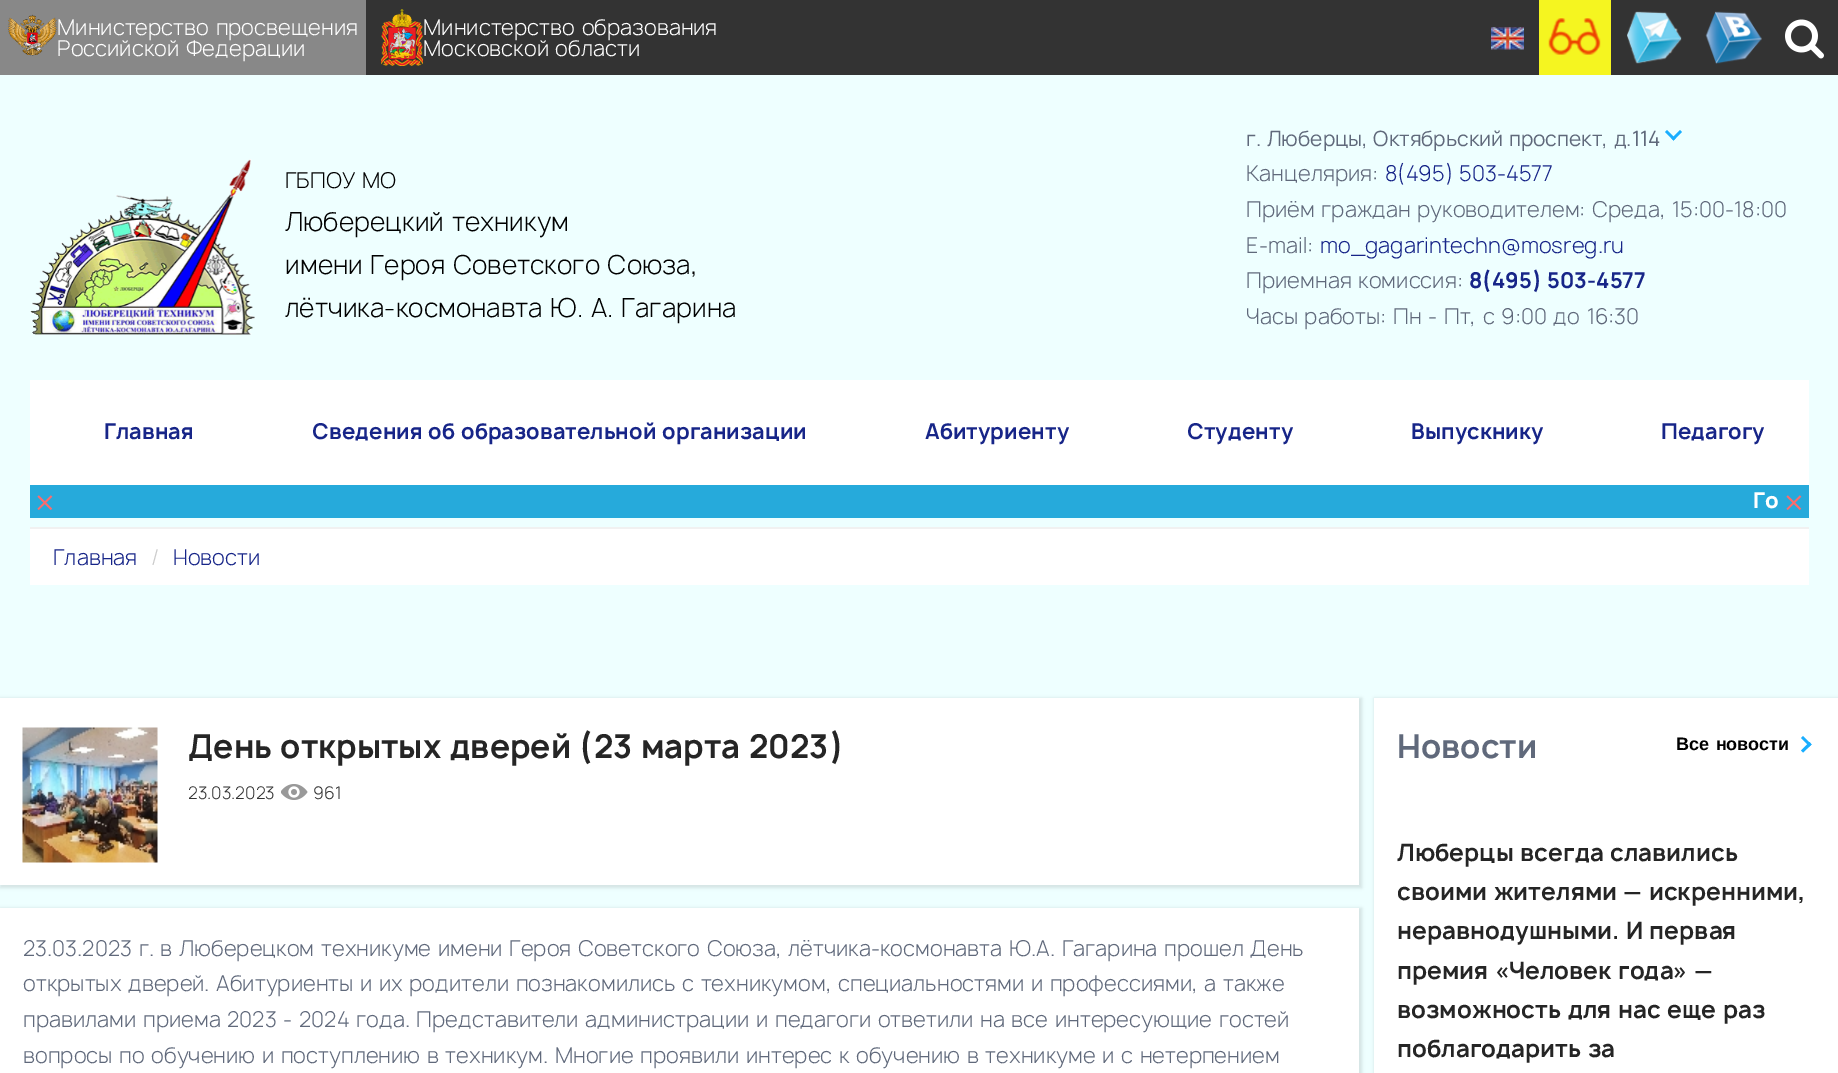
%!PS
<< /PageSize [1838 1073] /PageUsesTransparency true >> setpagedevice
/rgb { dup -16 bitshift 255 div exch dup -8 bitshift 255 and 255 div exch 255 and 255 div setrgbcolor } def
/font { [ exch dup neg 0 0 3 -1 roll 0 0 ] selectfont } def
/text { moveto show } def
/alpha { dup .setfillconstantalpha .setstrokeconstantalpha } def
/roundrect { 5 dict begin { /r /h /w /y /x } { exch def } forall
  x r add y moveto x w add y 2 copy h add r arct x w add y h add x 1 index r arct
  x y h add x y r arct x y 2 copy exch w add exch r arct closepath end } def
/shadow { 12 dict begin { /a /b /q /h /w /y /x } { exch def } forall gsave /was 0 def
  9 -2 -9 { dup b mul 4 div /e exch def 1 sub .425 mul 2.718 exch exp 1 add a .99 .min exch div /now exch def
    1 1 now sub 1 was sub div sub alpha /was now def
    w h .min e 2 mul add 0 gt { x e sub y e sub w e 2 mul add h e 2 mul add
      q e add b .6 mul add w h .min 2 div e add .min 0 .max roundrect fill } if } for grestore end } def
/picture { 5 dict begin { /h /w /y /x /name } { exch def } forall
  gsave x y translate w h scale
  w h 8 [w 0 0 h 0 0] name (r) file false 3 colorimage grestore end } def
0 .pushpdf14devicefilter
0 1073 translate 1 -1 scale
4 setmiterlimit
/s1 { /Manrope-Light 21 font 16#60697B rgb } def
/s2 { /Manrope-Light 21 font 16#172588 rgb } def
/s3 { /Manrope-Bold 21 font 16#172588 rgb } def
/s4 { /Manrope-Light 38 font 16#FF6B6B rgb } def
/s5 { /Manrope-Light 21 font 16#CCCCCC rgb } def
/s6 { /Manrope-Light 16.75 font 16#333333 rgb } def
/s7 { /Manrope-Bold 31.5 font 16#60697B rgb } def
16#EEFFFF rgb
0 0 1838 1073 rectfill
16#333333 rgb
366 0 1472 75 rectfill
16#888888 rgb
0 0 366 75 rectfill
(pic1.raw) 8 14 49 42 picture
/Manrope-Light 21 font
16#FFFFFF rgb
57 35 moveto 1.5 0 32 (Министерство просвещения) widthshow
57 56 moveto 1.5 0 32 (Российской Федерации) widthshow
(pic2.raw) 381 9 42 57 picture
423 35 moveto 1.5 0 32 (Министерство образования) widthshow
423 56 moveto 1.5 0 32 (Московской области) widthshow
(pic3.raw) 1491 27 33 23 picture
16#F5F520 rgb
1539 0 72 75 rectfill
(pic4.raw) 1548 18 53 37 picture
(pic5.raw) 1627 11 55 53 picture
(pic6.raw) 1705 11 57 53 picture
(pic7.raw) 1785 19 39 40 picture
(pic8.raw) 30 159 225 176 picture
16#000000 rgb
285 188 moveto 1.5 0 32 (ГБПОУ МО) widthshow
/Manrope-Light 25.25 font
285 231 moveto 1.5 0 32 (Люберецкий техникум) widthshow
285 274 moveto 1.5 0 32 (имени Героя Советского Союза,) widthshow
285 317 moveto 1.5 0 32 (лётчика-космонавта Ю. А. Гагарина) widthshow
/Manrope-Regular 21 font
16#60697B rgb
1246 146 moveto 1.5 0 32 (г. Люберцы, Октябрьский проспект, д.114) widthshow
16#19AEFF rgb
1680 130 moveto 1682 132 lineto 1673.5 140.5 lineto 1671.5 138.5 lineto closepath fill
1667 130 moveto 1675.5 138.5 lineto 1673.5 140.5 lineto 1665 132 lineto closepath fill
s1
(Канцелярия:) 1246 181 text
16#172588 rgb
1385 181 moveto 1.5 0 32 (8\(495\) 503-4577) widthshow
16#60697B rgb
1246 217 moveto 1.5 0 32 (Приём граждан руководителем: Среда, 15:00-18:00) widthshow
(E-mail:) 1246 253 text
s2
(mo_gagarintechn@mosreg.ru) 1320 253 text
16#60697B rgb
1246 288 moveto 1.5 0 32 (Приемная комиссия:) widthshow
/Manrope-Bold 21 font
16#172588 rgb
1469 288 moveto 1.5 0 32 (8\(495\) 503-4577) widthshow
/Manrope-Light 21 font
16#60697B rgb
1246 324 moveto 1.5 0 32 (Часы работы: Пн - Пт, с 9:00 до 16:30) widthshow
16#FFFFFF rgb
30 380 1779 105 rectfill
s3
(Главная) 104 439 text
312 439 moveto 1.5 0 32 (Сведения об образовательной организации) widthshow
(Абитуриенту) 925 439 text
(Студенту) 1187 439 text
(Выпускнику) 1411 439 text
(Педагогу) 1661 439 text
16#26AADB rgb
30 485 1779 33 rectfill
s4
(×) 35 514 text
/Manrope-ExtraBold 21 font
16#FFFFFF rgb
1753 508 moveto 1.5 0 32 (Го) widthshow
s4
(×) 1784 514 text
16#FFFFFF rgb
30 529 1779 56 rectfill
16#F1F1F1 rgb
30 527 1779 2 rectfill
s2
(Главная) 53 565 text
s5
(/) 151 565 text
s2
(Новости) 173 565 text
16#000000 rgb
0 698 1362 190 0 1.5 0.1 shadow
16#FFFFFF rgb
0 698 1359 187 rectfill
(pic9.raw) 22 727 136 136 picture
/Manrope-Bold 31.5 font
16#252525 rgb
188 758 moveto 1.5 0 32 (День открытых дверей \(23 марта 2023\)) widthshow
s6
(23.03.2023) 188 799 text
(pic10.raw) 281 784 27 16 picture
(961) 313 799 text
16#000000 rgb
0 908 1362 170 0 1.5 0.1 shadow
16#FFFFFF rgb
0 908 1359 165 rectfill
/Manrope-Light 21 font
16#60697B rgb
23 956 moveto 1.5 0 32 (23.03.2023 г. в Люберецком техникуме имени Героя Советского Союза, лётчика-космонавта Ю.А. Гагарина прошел День) widthshow
23 991 moveto 1.5 0 32 (открытых дверей. Абитуриенты и их родители познакомились с техникумом, специальностями и профессиями, а также) widthshow
23 1027 moveto 1.5 0 32 (правилами приема 2023 - 2024 года. Представители администрации и педагоги ответили на все интересующие гостей) widthshow
23 1063 moveto 1.5 0 32 (вопросы по обучению и поступлению в техникум. Многие проявили интерес к обучению в техникуме и с нетерпением) widthshow
16#000000 rgb
1374 698 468 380 0 1.5 0.1 shadow
16#FFFFFF rgb
1374 698 464 375 rectfill
s7
(Новости) 1397 758 text
/LiberationSans-Bold 18 font
16#000000 rgb
1676 750 moveto 1.5 0 32 (Все новости) widthshow
16#19AEFF rgb
1803 736 moveto 1811.5 744.5 lineto 1809.5 746.5 lineto 1801 738 lineto closepath fill
1809.5 742 moveto 1811.5 744.5 lineto 1803 752.5 lineto 1801 750.5 lineto closepath fill
/Manrope-Bold 23.1 font
16#252525 rgb
1397 861 moveto 1.5 0 32 (Люберцы всегда славились) widthshow
1397 900 moveto 1.5 0 32 (своими жителями — искренними,) widthshow
1397 939 moveto 1.5 0 32 (неравнодушными. И первая) widthshow
1397 979 moveto 1.5 0 32 (премия «Человек года» —) widthshow
1397 1018 moveto 1.5 0 32 (возможность для нас еще раз) widthshow
1397 1057 moveto 1.5 0 32 (поблагодарить за) widthshow
.poppdf14devicefilter showpage
